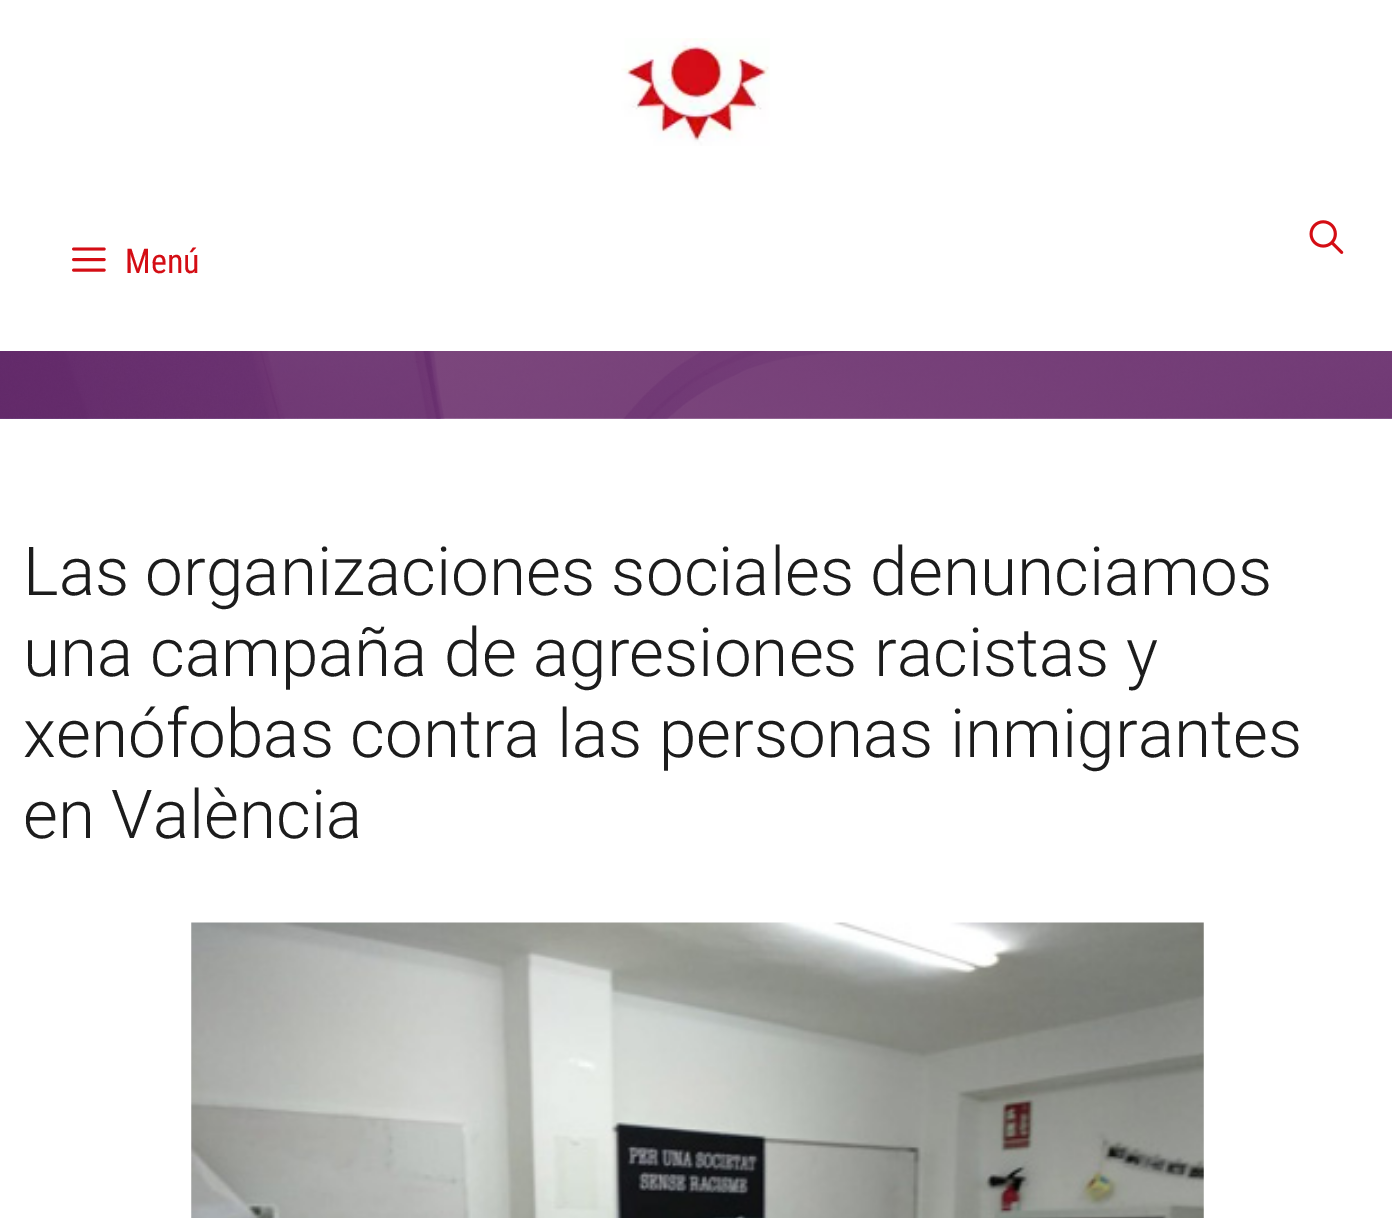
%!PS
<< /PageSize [1392 1218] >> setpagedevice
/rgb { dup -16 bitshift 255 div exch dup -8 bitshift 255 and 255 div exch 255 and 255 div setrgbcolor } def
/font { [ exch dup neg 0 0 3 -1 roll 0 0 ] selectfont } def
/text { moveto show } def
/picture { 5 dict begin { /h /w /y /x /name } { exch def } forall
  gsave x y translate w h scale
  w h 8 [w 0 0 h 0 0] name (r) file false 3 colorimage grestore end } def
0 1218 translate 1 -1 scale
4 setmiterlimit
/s1 { /RobotoCondensed-Regular 34 font 16#D40D14 rgb } def
/s2 { /Roboto-Light 67.5 font 16#1C1C1C rgb } def
16#FFFFFF rgb
0 0 1392 1218 rectfill
(pic1.raw) 621 38 149 108 picture
(pic2.raw) 1309 220 35 34 picture
(pic3.raw) 72 247 34 25 picture
s1
(Menú) 125 273 text
(pic4.raw) 0 351 1392 68 picture
s2
(Las organizaciones sociales denunciamos) 23 595 text
(una campaña de agresiones racistas y) 23 676 text
(xenófobas contra las personas inmigrantes) 23 757 text
(en València) 23 838 text
(pic5.raw) 191 922 1013 296 picture
showpage
